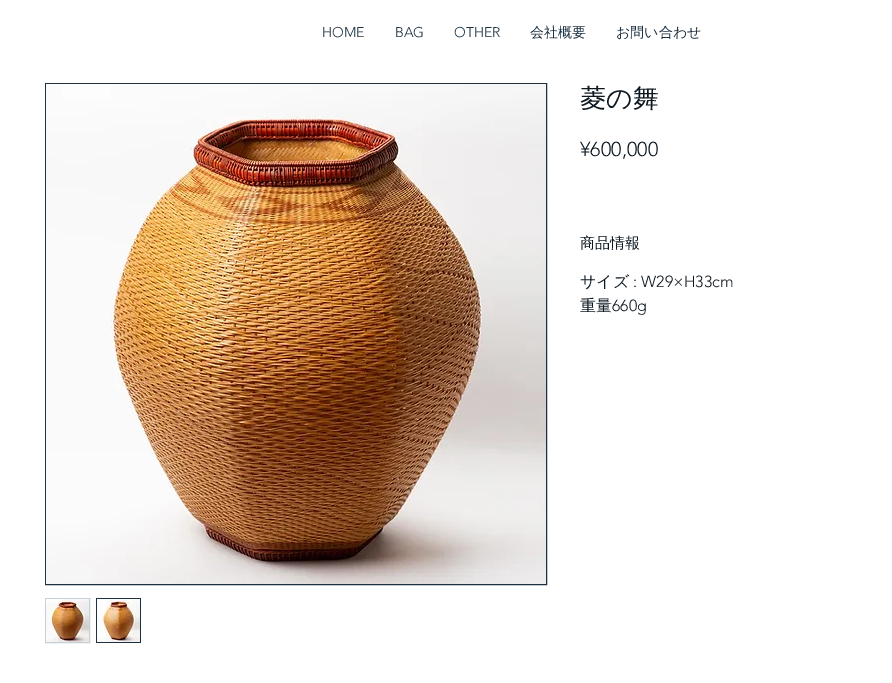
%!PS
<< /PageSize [892 683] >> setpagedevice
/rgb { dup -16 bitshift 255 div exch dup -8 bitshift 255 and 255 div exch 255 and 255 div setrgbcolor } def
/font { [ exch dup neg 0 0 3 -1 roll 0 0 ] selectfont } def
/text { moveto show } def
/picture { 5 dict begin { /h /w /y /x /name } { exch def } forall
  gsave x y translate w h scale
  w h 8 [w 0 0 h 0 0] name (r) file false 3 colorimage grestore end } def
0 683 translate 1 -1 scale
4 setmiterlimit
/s1 { /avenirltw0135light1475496-Light 14 font 16#1C3142 rgb } def
/s2 { /WenQuanYiZenHei-Medium 14 font 16#1C3142 rgb } def
/s3 { /WenQuanYiZenHei-Medium 26 font 16#0E1821 rgb } def
/s4 { /avenirltw0135light1475496-Light 20 font 16#0E1821 rgb } def
/s5 { /WenQuanYiZenHei-Medium 15 font 16#0E1821 rgb } def
/s6 { /WenQuanYiZenHei-Medium 16 font 16#0E1821 rgb } def
/s7 { /avenirltw0135light1475496-Light 16 font 16#0E1821 rgb } def
16#FFFFFF rgb
0 0 892 683 rectfill
s1
(HOME) 322 37 text
(BAG) 395 37 text
(OTHER) 454 37 text
s2
(会社概要) 530 37 text
(お問い合わせ) 616 37 text
45.5 83.5 501 501 rectstroke
(pic1.raw) 46 84 500 500 picture
16#C5D0D9 rgb
45.5 598.5 44 44 rectstroke
(pic2.raw) 46 599 43 43 picture
16#1C3142 rgb
96 598 45 45 rectfill
(pic3.raw) 97 599 43 43 picture
s3
(菱の舞) 580 107 text
s4
(¥600,000) 580 156 text
s5
(商品情報) 580 248 text
s6
(サイズ) 580 287 text
s7
(: W29×H33cm) 633 287 text
s6
(重量) 580 311 text
s7
(660g) 612 311 text
showpage
